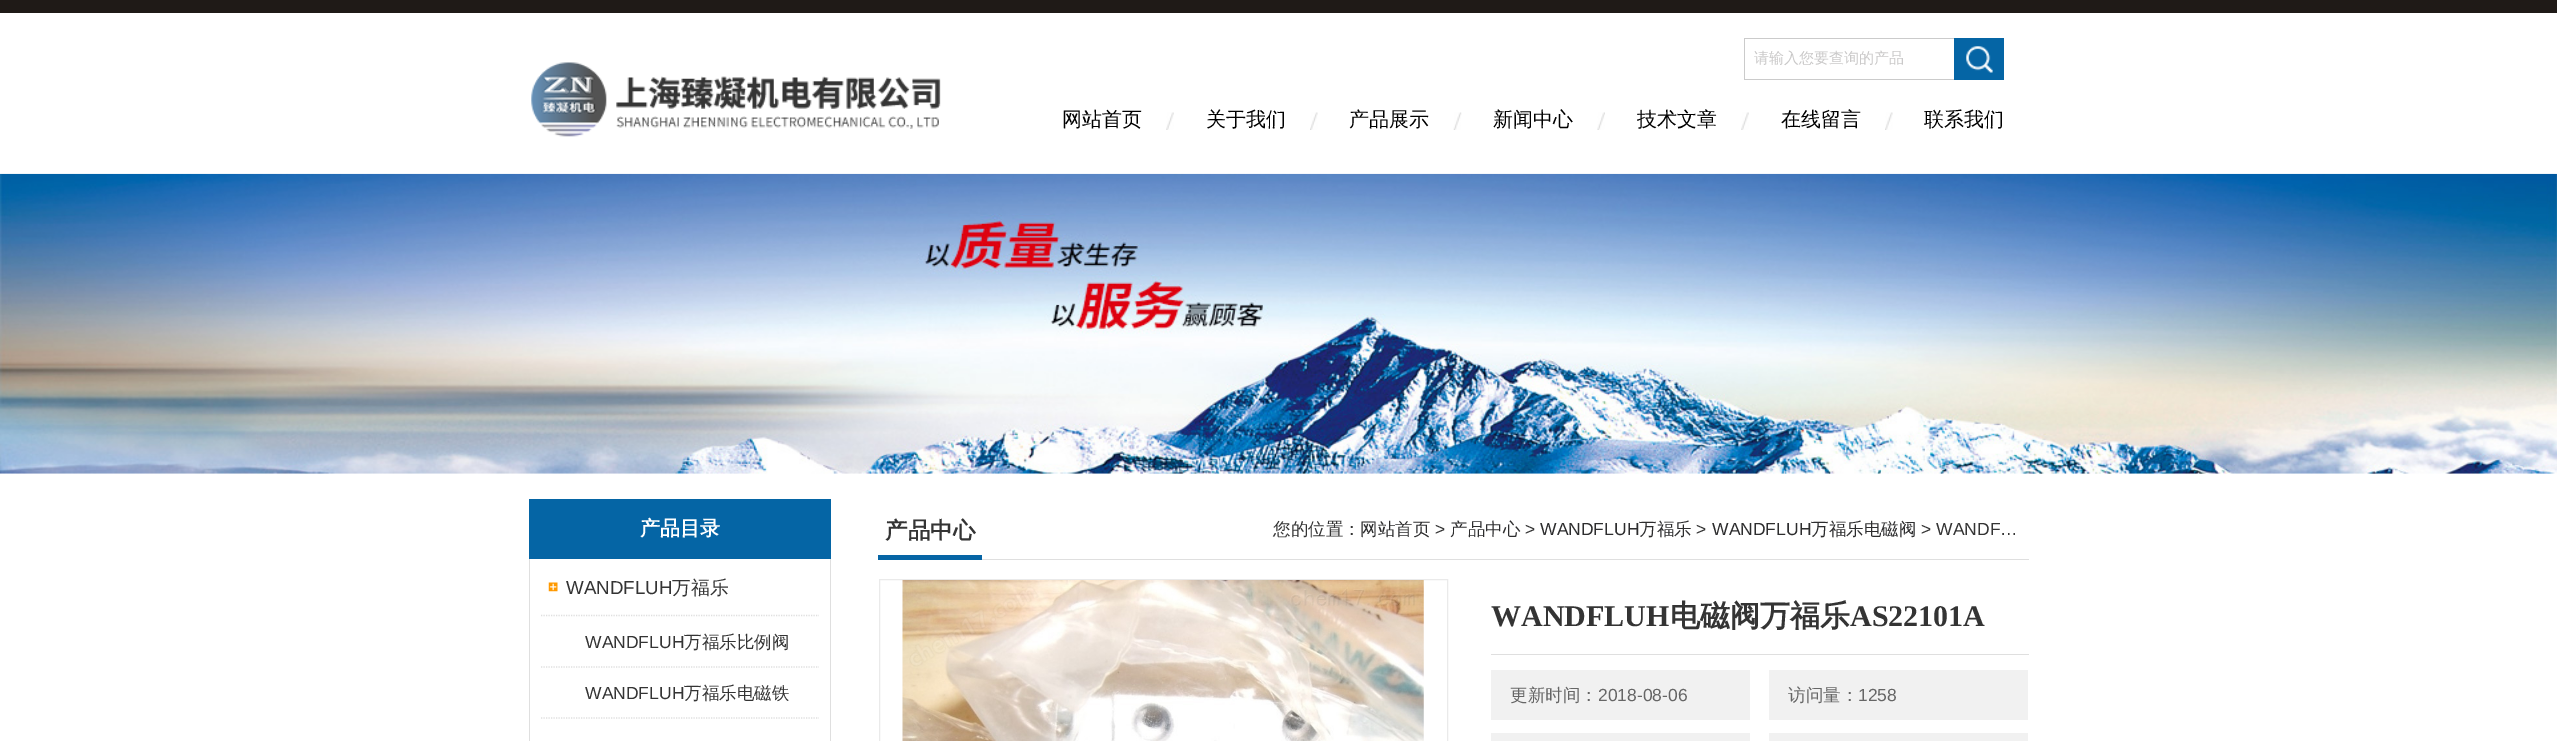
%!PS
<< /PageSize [2557 741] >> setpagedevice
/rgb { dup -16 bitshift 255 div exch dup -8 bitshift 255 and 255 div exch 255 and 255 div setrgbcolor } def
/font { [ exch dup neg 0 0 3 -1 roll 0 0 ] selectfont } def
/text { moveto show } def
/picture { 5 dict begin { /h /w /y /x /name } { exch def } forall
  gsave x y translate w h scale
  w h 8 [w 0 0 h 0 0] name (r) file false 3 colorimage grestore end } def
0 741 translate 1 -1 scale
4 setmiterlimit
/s1 { /WenQuanYiZenHei-Medium 15 font 16#CAC9C9 rgb } def
/s2 { /WenQuanYiZenHei-Medium 20 font 16#010101 rgb } def
/s3 { /WenQuanYiZenHei-Bold 20 font 16#FFFFFF rgb } def
/s4 { /LiberationSans-Regular 18.75 font 16#343434 rgb } def
/s5 { /WenQuanYiZenHei-Medium 18.75 font 16#343434 rgb } def
/s6 { /LiberationSans-Regular 17.5 font 16#343434 rgb } def
/s7 { /WenQuanYiZenHei-Medium 17.5 font 16#343434 rgb } def
/s8 { /WenQuanYiZenHei-Bold 22.5 font 16#343434 rgb } def
/s9 { /WenQuanYiZenHei-Medium 17.5 font 16#2D2D2E rgb } def
/s10 { /LiberationSans-Regular 17.5 font 16#2D2D2E rgb } def
/s11 { /LiberationSerif-Bold 30 font 16#343434 rgb } def
/s12 { /WenQuanYiZenHei-Bold 30 font 16#343434 rgb } def
/s13 { /WenQuanYiZenHei-Medium 17.5 font 16#666666 rgb } def
/s14 { /LiberationSans-Regular 17.5 font 16#666666 rgb } def
16#FFFFFF rgb
0 0 2557 741 rectfill
16#1F1A17 rgb
0 0 2557 13 rectfill
(pic1.raw) 531 62 410 75 picture
16#CBCBCB rgb
1744 38 210 1 rectfill
1744 79 210 1 rectfill
1744 38 1 42 rectfill
s1
(请输入您要查询的产品) 1754 63 text
16#0565A5 rgb
1954 38 50 42 rectfill
(pic2.raw) 1966 46 27 27 picture
s2
(网站首页) 1062 126 text
(pic3.raw) 1166 112 8 18 picture
(关于我们) 1206 126 text
(pic4.raw) 1310 112 8 18 picture
(产品展示) 1349 126 text
(pic5.raw) 1453 112 9 18 picture
(新闻中心) 1493 126 text
(pic6.raw) 1597 112 8 18 picture
(技术文章) 1637 126 text
(pic3.raw) 1741 112 8 18 picture
(在线留言) 1781 126 text
(pic4.raw) 1885 112 8 18 picture
(联系我们) 1924 126 text
(pic7.raw) 0 173 2557 301 picture
16#0565A5 rgb
529 499 302 60 rectfill
s3
(产品目录) 640 535 text
16#DFDFDF rgb
830 559 1 182 rectfill
529 559 1 182 rectfill
(pic8.raw) 548 582 10 10 picture
s4
(WANDFLUH) 566 594 text
s5
(万福乐) 672 594 text
16#DFDFDF rgb
1.2 setlinewidth
[1.25 1.25] 0 setdash
541 615.5 moveto 819 615.5 lineto stroke
s6
(WANDFLUH) 585 648 text
s7
(万福乐比例阀) 684 648 text
16#DFDFDF rgb
541 667 moveto 819 667 lineto stroke
s6
(WANDFLUH) 585 699 text
s7
(万福乐电磁铁) 684 699 text
16#DFDFDF rgb
541 718 moveto 819 718 lineto stroke
982 559 1047 1 rectfill
16#0665A5 rgb
878 555 104 5 rectfill
s8
(产品中心) 885 538 text
s7
(您的位置：) 1273 535 text
s9
(网站首页) 1360 535 text
s6
(>) 1435 535 text
s9
(产品中心) 1450 535 text
s6
(>) 1525 535 text
s10
(WANDFLUH) 1540 535 text
s9
(万福乐) 1639 535 text
s6
(>) 1696 535 text
s10
(WANDFLUH) 1712 535 text
s9
(万福乐电磁阀) 1811 535 text
s6
(> WANDF…) 1921 535 text
16#EAEAEA rgb
1 setlinewidth
[] 0 setdash
879.5 579.5 568 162 rectstroke
(pic9.raw) 902 580 522 161 picture
16#DFDFDF rgb
1491 654 538 1 rectfill
s11
(WANDFLUH) 1491 626 text
s12
(电磁阀万福乐) 1670 626 text
s11
(AS22101A) 1850 626 text
16#F1F1F1 rgb
1491 670 259 50 rectfill
s13
(更新时间：) 1510 701 text
s14
(2018-08-06) 1598 701 text
16#F1F1F1 rgb
1769 670 259 50 rectfill
s13
(访问量：) 1788 701 text
s14
(1258) 1858 701 text
16#F1F1F1 rgb
1491 733 259 8 rectfill
1769 733 259 8 rectfill
showpage
